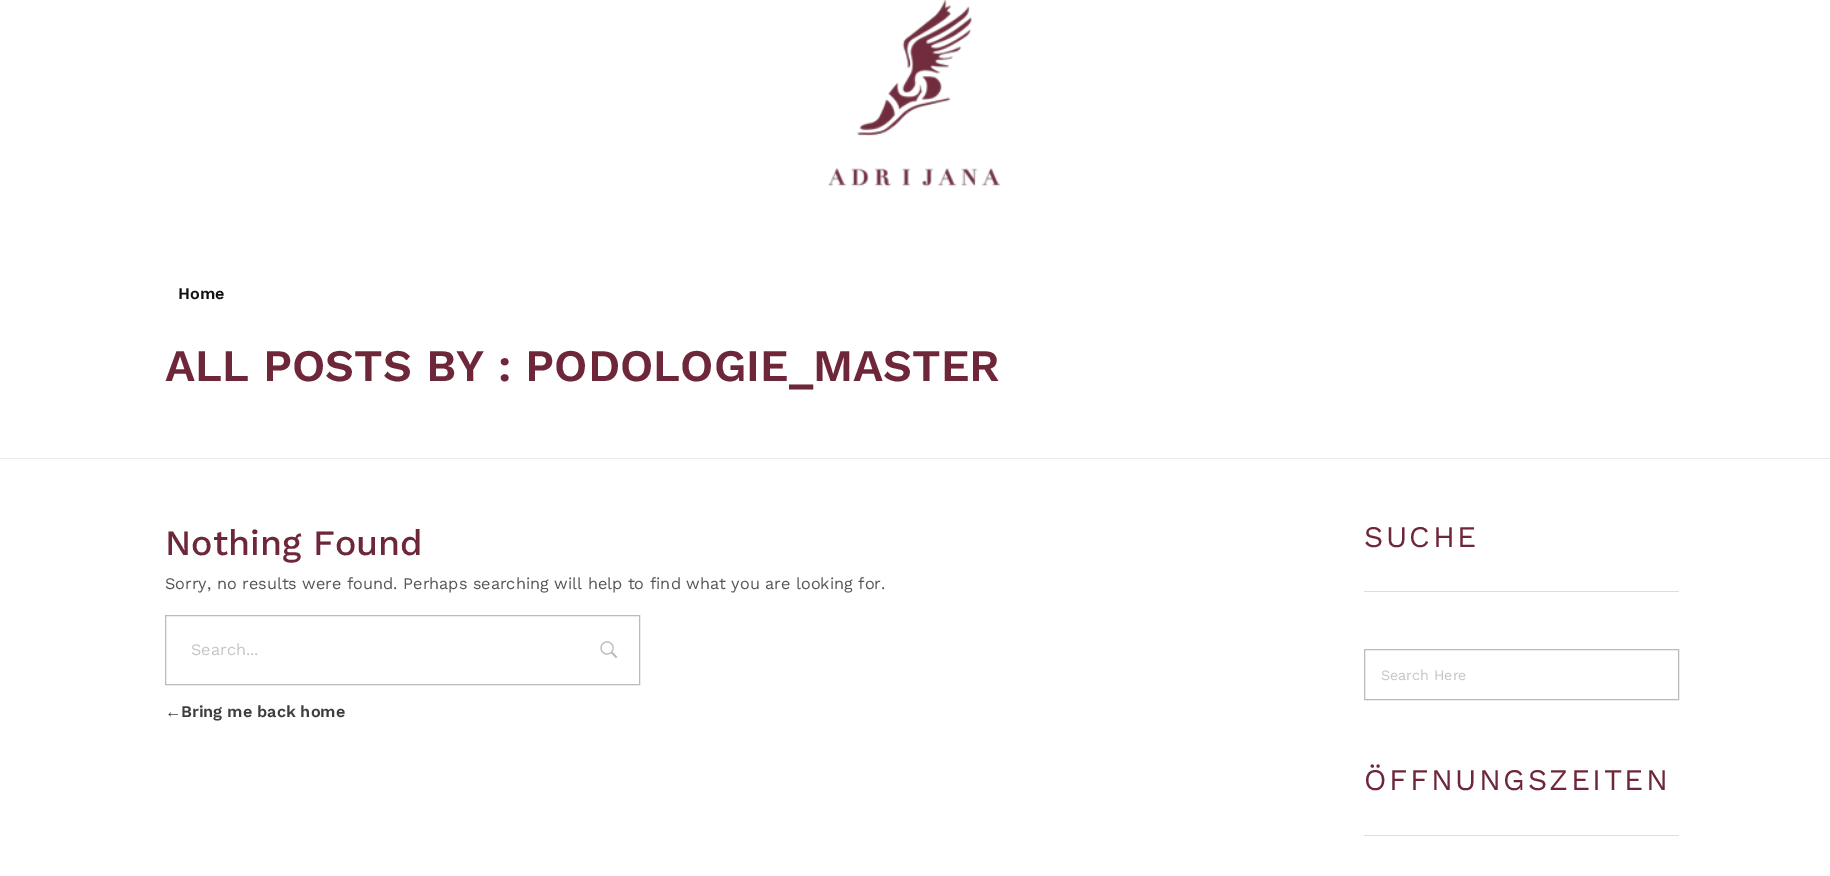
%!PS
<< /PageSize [1830 876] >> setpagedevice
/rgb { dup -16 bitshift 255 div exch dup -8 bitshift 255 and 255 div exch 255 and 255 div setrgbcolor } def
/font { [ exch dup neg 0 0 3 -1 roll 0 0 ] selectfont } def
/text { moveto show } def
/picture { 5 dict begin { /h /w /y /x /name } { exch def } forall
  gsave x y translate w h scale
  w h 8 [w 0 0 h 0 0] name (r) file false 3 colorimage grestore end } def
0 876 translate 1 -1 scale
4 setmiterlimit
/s1 { /WorkSans-SemiBold 16.25 font 16#111111 rgb } def
/s2 { /WorkSans-SemiBold 45 font 16#6E2639 rgb } def
/s3 { /WorkSans-Medium 35.75 font 16#6E2639 rgb } def
/s4 { /WorkSans-Regular 16.25 font 16#555554 rgb } def
/s5 { /WorkSans-Regular 16.25 font 16#C5C5C5 rgb } def
/s6 { /LiberationSans-Bold 16.25 font 16#3D3D3D rgb } def
/s7 { /WorkSans-SemiBold 16.25 font 16#3D3D3D rgb } def
/s8 { /WorkSans-Regular 14.25 font 16#C5C5C5 rgb } def
16#FFFFFF rgb
0 0 1830 876 rectfill
(pic1.raw) 827 0 174 187 picture
16#EAEAEA rgb
0 458 1830 1 rectfill
s1
(Home) 178 299 text
s2
(ALL POSTS BY : PODOLOGIE_MASTER) 165 381 text
s3
(Nothing Found) 165 555 text
s4
(Sorry, no results were found. Perhaps searching will help to find what you are looking for.) 165 589 text
16#BBBBBB rgb
165.5 615.5 474 69 rectstroke
s5
(Search...) 191 655 text
(pic2.raw) 600 641 18 18 picture
s6
(←) 165 717 text
s7
(Bring me back home) 181 717 text
16#DEDEDE rgb
1364 591 315 1 rectfill
/WorkSans-Regular 30 font
16#6E2639 rgb
1364 547 moveto 2.5 0 (SUCHE) ashow
16#BBBBBB rgb
1364.5 649.5 314 50 rectstroke
s8
(Search Here) 1381 680 text
16#DEDEDE rgb
1364 835 315 1 rectfill
/WorkSans-Regular 30 font
16#6E2639 rgb
1364 790 moveto 2.5 0 (ÖFFNUNGSZEITEN) ashow
showpage
